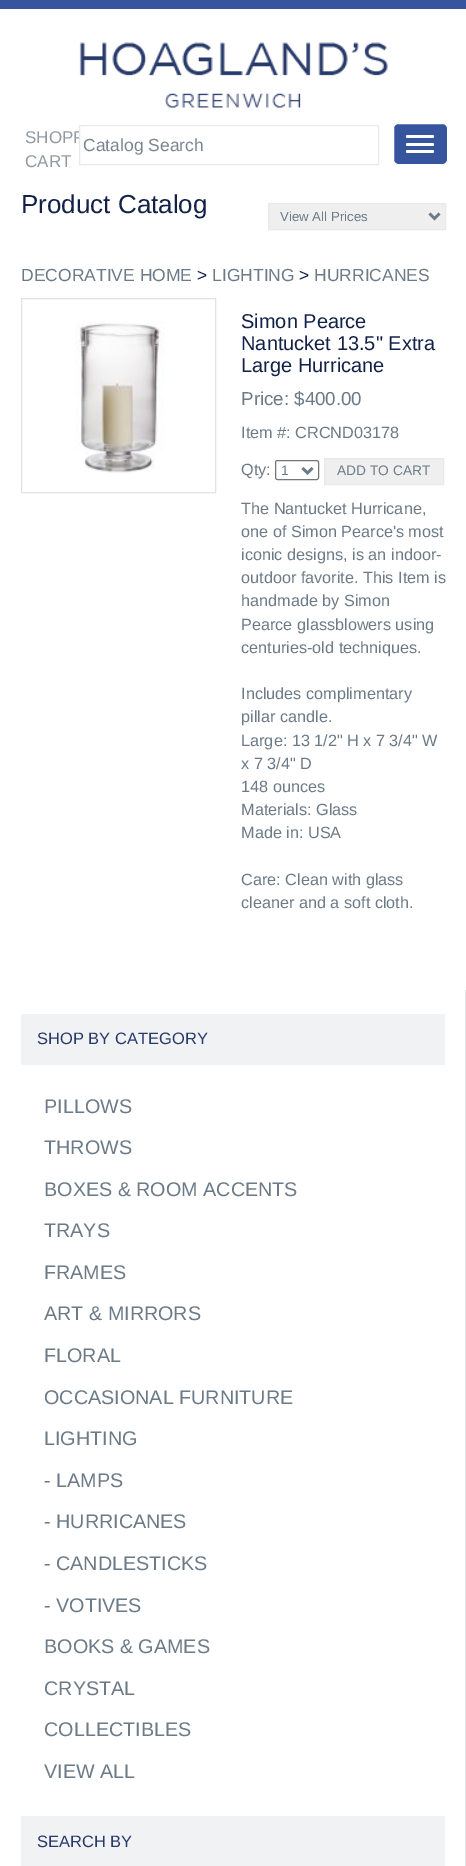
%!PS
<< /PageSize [466 1866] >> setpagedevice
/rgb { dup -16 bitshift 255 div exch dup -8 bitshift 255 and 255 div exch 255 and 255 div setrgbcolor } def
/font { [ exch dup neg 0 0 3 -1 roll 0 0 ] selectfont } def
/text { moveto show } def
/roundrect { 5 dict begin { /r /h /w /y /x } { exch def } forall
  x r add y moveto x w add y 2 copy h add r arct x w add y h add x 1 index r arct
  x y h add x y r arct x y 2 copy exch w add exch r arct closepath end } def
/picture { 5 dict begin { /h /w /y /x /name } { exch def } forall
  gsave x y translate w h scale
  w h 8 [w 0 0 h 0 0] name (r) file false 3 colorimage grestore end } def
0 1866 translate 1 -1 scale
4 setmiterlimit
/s1 { /LiberationSans-Regular 17 font 16#909AA2 rgb } def
/s2 { /LiberationSans-Regular 17.5 font 16#798590 rgb } def
/s3 { /LiberationSans-Regular 26 font 16#132149 rgb } def
/s4 { /LiberationSans-Regular 13.25 font 16#6C7B87 rgb } def
/s5 { /LiberationSans-Regular 17.5 font 16#6C7B87 rgb } def
/s6 { /LiberationSans-Regular 17.5 font 16#132149 rgb } def
/s7 { /LiberationSans-Regular 20 font 16#132149 rgb } def
/s8 { /LiberationSans-Regular 18.75 font 16#6C7B87 rgb } def
/s9 { /LiberationSans-Regular 16.25 font 16#6C7B87 rgb } def
/s10 { /LiberationSans-Regular 13.75 font 16#6C7B87 rgb } def
/s11 { /LiberationSans-Regular 16.5 font 16#283A69 rgb } def
/s12 { /LiberationSans-Regular 19.75 font 16#6C7B87 rgb } def
16#FFFFFF rgb
0 0 466 1866 rectfill
16#37549E rgb
0 0 466 9 rectfill
(pic1.raw) 79 42 309 66 picture
393.5 123.5 54 41 4.5 roundrect gsave fill grestore
16#FFFFFF rgb
stroke
406 135 28 3 1.5 roundrect fill
406 143 28 3 1.5 roundrect fill
406 150 28 3 1.5 roundrect fill
s1
(SHOPP) 25 143 text
(CART) 25 167 text
16#FFFFFF rgb
80 131 5 8 rectfill
16#E9E9E9 rgb
79.5 125.5 299 39 rectstroke
s2
(Catalog Search) 83 151 text
s3
(Product Catalog) 21 213 text
16#EFEFEF rgb
268.5 203.5 moveto 445.5 203.5 lineto 445.5 229.5 lineto 268.5 229.5 lineto closepath gsave fill grestore
16#E9E9E9 rgb
stroke
16#6C7B87 rgb
2.5 setlinewidth
429.5 213.5 moveto 434.5 218.5 lineto 439.5 213.5 lineto stroke
s4
(View All Prices) 280 221 text
s5
(DECORATIVE HOME) 21 281 text
s6
(>) 197 281 text
s5
(LIGHTING) 212 281 text
s6
(>) 299 281 text
s5
(HURRICANES) 314 281 text
16#E1E4E7 rgb
1 setlinewidth
21.5 298.5 194 194 rectstroke
(pic2.raw) 75 321 90 152 picture
s7
(Simon Pearce) 241 328 text
(Nantucket 13.5" Extra) 241 350 text
(Large Hurricane) 241 372 text
s8
(Price: $400.00) 241 405 text
s9
(Item #: CRCND03178) 241 438 text
(Qty:) 241 475 text
16#767676 rgb
275.5 460.5 43 19 2 roundrect stroke
16#6C7B87 rgb
2.5 setlinewidth
302.5 468 moveto 307.5 473 lineto 312.5 468 lineto stroke
s10
(1) 281 475 text
16#EFEFEF rgb
324.5 458.5 moveto 443.5 458.5 lineto 443.5 484.5 lineto 324.5 484.5 lineto closepath gsave fill grestore
16#E9E9E9 rgb
1 setlinewidth
stroke
s10
(ADD TO CART) 337 475 text
s9
(The Nantucket Hurricane,) 241 514 text
(one of Simon Pearce's most) 241 537 text
(iconic designs, is an indoor-) 241 560 text
(outdoor favorite. This Item is) 241 583 text
(handmade by Simon) 241 606 text
(Pearce glassblowers using) 241 630 text
(centuries-old techniques.) 241 653 text
(Includes complimentary) 241 699 text
(pillar candle.) 241 722 text
(Large: 13 1/2" H x 7 3/4" W) 241 746 text
(x 7 3/4" D) 241 769 text
(148 ounces) 241 792 text
(Materials: Glass) 241 815 text
(Made in: USA) 241 838 text
(Care: Clean with glass) 241 885 text
(cleaner and a soft cloth.) 241 908 text
16#E1E4E7 rgb
465 990 1 876 rectfill
16#F1F2F3 rgb
21 1014 424 51 rectfill
s11
(SHOP BY CATEGORY) 37 1044 text
s12
(PILLOWS) 44 1113 text
(THROWS) 44 1154 text
(BOXES & ROOM ACCENTS) 44 1196 text
(TRAYS) 44 1237 text
(FRAMES) 44 1279 text
(ART & MIRRORS) 44 1320 text
(FLORAL) 44 1362 text
(OCCASIONAL FURNITURE) 44 1404 text
(LIGHTING) 44 1445 text
(- LAMPS) 44 1487 text
(- HURRICANES) 44 1528 text
(- CANDLESTICKS) 44 1570 text
(- VOTIVES) 44 1612 text
(BOOKS & GAMES) 44 1653 text
(CRYSTAL) 44 1695 text
(COLLECTIBLES) 44 1736 text
(VIEW ALL) 44 1778 text
16#F1F2F3 rgb
21 1816 424 50 rectfill
s11
(SEARCH BY) 37 1847 text
showpage
